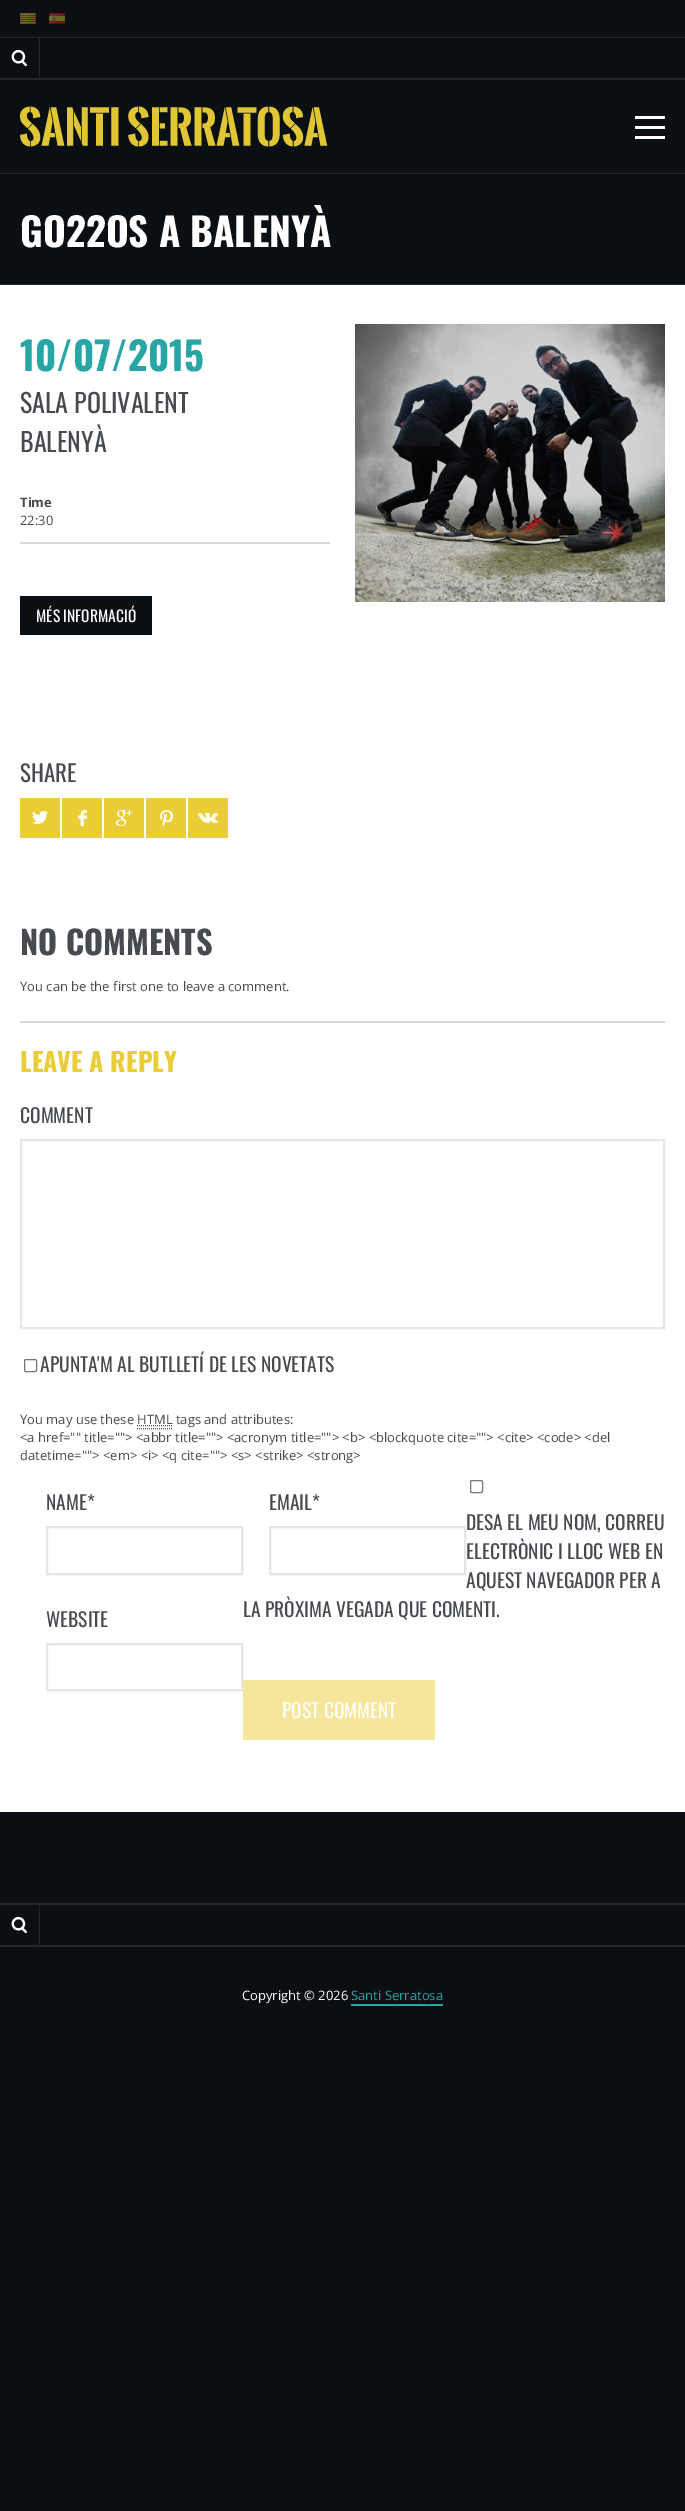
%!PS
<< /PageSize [685 2511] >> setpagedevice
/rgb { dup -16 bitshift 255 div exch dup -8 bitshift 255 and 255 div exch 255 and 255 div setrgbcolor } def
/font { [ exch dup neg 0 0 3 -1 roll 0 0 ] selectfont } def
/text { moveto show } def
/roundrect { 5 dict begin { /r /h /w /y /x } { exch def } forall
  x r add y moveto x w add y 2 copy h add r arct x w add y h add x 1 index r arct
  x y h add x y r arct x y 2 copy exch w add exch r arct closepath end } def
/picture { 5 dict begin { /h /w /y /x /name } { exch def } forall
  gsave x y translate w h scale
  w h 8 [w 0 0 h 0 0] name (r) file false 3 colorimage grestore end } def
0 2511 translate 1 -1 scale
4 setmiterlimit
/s1 { /Oswald-Bold 39 font 16#FFFFFF rgb } def
/s2 { /Oswald-Bold 39 font 16#28A5A5 rgb } def
/s3 { /Oswald-Regular 26 font 16#474B4F rgb } def
/s4 { /OpenSans-Bold 13 font 16#474B4F rgb } def
/s5 { /OpenSans-Regular 13 font 16#474B4F rgb } def
/s6 { /Oswald-Regular 15.5 font 16#FFFFFF rgb } def
/s7 { /Oswald-Regular 23 font 16#474B4F rgb } def
/s8 { /Oswald-Bold 32.5 font 16#474B4F rgb } def
/s9 { /Oswald-Bold 26 font 16#EBCD37 rgb } def
/s10 { /Oswald-Regular 19.5 font 16#474B4F rgb } def
/s11 { /Oswald-Regular 19.5 font 16#FFFFFF rgb } def
/s12 { /OpenSans-Regular 13 font 16#FFFFFF rgb } def
/s13 { /OpenSans-Regular 13 font 16#28A5A5 rgb } def
16#0A0F14 rgb
0 0 685 2511 rectfill
16#23272C rgb
0 78 685 2 rectfill
(pic1.raw) 20 13 16 11 picture
(pic2.raw) 49 13 16 11 picture
0 37 685 1 rectfill
(pic3.raw) 11 49 16 18 picture
39 38 1 40 rectfill
0 173 685 1 rectfill
(pic4.raw) 20 106 308 41 picture
(pic5.raw) 635 116 30 23 picture
0 284 685 1 rectfill
s1
(GO22OS A BALENYÀ) 20 247 text
0 285 685 1527 rectfill
s2
(10/07/2015) 20 371 text
s3
(SALA POLIVALENT) 20 413 text
(BALENYÀ) 20 452 text
s4
(Time) 20 507 text
s5
(22:30) 20 525 text
16#D9D9D9 rgb
20 542 310 2 rectfill
16#0A0F14 rgb
20 596 132 39 rectfill
s6
(MÉS INFORMACIÓ) 36 622 text
s7
(SHARE) 20 782 text
16#EBCD37 rgb
20 798 40 40 rectfill
(pic6.raw) 32 811 16 13 picture
62 798 40 40 rectfill
(pic7.raw) 78 810 9 16 picture
104 798 40 40 rectfill
(pic8.raw) 116 810 16 16 picture
146 798 40 40 rectfill
(pic9.raw) 160 810 13 16 picture
188 798 40 40 rectfill
(pic10.raw) 198 813 20 10 picture
(pic11.raw) 355 324 310 278 picture
s8
(NO COMMENTS) 20 955 text
s5
(You can be the first one to leave a comment.) 20 991 text
16#D9D9D9 rgb
20 1021 645 2 rectfill
s9
(LEAVE A REPLY) 20 1072 text
s10
(COMMENT) 20 1123 text
16#E6E6E6 rgb
2 setlinewidth
21 1140 643 188 rectstroke
16#767676 rgb
1 setlinewidth
24.5 1359.5 12 12 1.5 roundrect stroke
s10
(APUNTA'M AL BUTLLETÍ DE LES NOVETATS) 40 1372 text
s5
(You may use these HTML tags and attributes:) 20 1424 text
[1 1] 0 setdash
137 1428.5 moveto 172 1428.5 lineto 137 1425.5 moveto 172.5 1425.5 lineto stroke
(<a href="" title=""> <abbr title=""> <acronym title=""> <b> <blockquote cite=""> <cite> <code> <del) 20 1442 text
(datetime=""> <em> <i> <q cite=""> <s> <strike> <strong>) 20 1460 text
s10
(NAME*) 46 1510 text
16#E6E6E6 rgb
2 setlinewidth
[] 0 setdash
47 1527 195 47 rectstroke
s10
(EMAIL*) 269 1510 text
16#E6E6E6 rgb
270 1527 195 47 rectstroke
s10
(WEBSITE) 46 1627 text
16#E6E6E6 rgb
47 1644 195 46 rectstroke
16#767676 rgb
1 setlinewidth
470.5 1480.5 12 12 1.5 roundrect stroke
s10
(DESA EL MEU NOM, CORREU) 466 1530 text
(ELECTRÒNIC I LLOC WEB EN) 466 1559 text
(AQUEST NAVEGADOR PER A) 466 1588 text
(LA PRÒXIMA VEGADA QUE COMENTI.) 243 1617 text
16#F5E69B rgb
243 1680 192 60 rectfill
s11
(POST COMMENT) 282 1718 text
16#23272C rgb
0 1903 685 2 rectfill
0 1945 685 2 rectfill
(pic3.raw) 11 1916 16 18 picture
39 1905 1 40 rectfill
s12
(Copyright © 2026) 242 2000 text
s13
(Santi Serratosa) 351 2000 text
351 2004 92 2 rectfill
showpage
